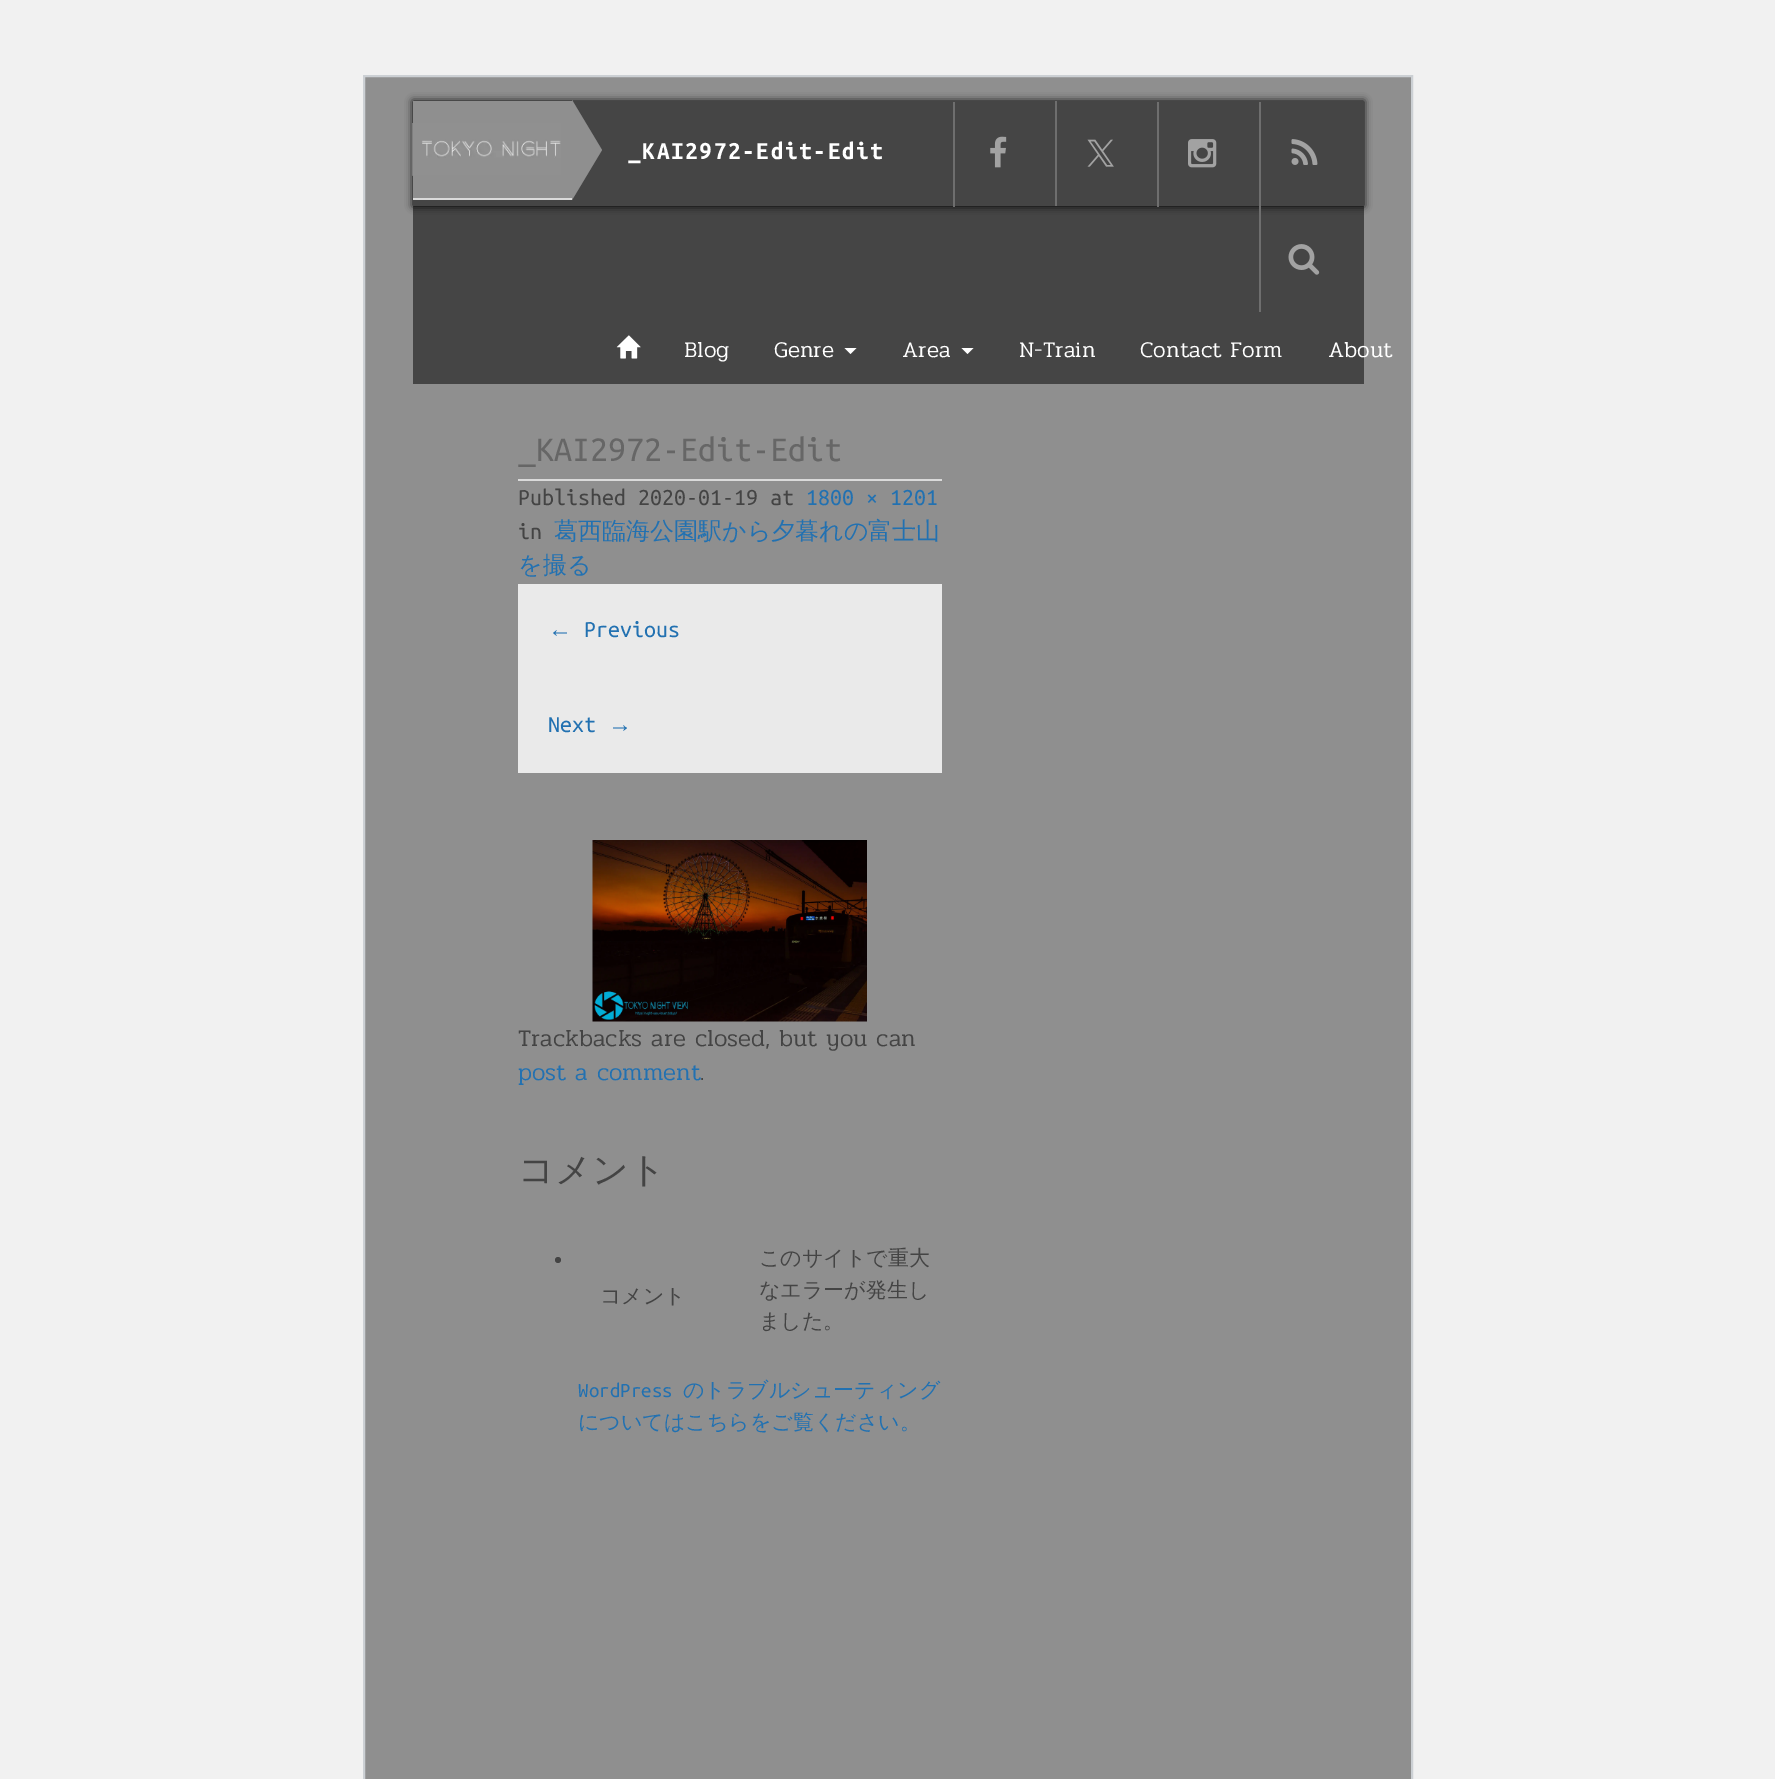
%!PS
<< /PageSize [1775 1779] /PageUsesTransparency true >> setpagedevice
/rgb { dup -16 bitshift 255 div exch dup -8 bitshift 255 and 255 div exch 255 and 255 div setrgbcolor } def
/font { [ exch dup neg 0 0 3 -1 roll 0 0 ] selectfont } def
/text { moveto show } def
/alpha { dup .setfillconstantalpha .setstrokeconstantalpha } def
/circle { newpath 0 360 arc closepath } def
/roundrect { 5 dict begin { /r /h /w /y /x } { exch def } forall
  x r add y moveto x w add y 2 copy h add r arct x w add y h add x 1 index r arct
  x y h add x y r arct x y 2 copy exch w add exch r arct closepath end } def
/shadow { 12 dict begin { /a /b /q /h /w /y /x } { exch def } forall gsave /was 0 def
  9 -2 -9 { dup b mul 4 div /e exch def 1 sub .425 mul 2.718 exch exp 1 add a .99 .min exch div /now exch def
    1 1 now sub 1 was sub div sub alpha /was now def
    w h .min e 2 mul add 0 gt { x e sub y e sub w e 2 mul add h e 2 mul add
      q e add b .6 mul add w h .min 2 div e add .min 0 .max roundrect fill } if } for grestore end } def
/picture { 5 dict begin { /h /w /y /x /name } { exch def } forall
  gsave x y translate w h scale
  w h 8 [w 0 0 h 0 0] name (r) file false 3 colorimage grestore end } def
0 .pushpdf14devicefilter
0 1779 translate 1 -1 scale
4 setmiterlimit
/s1 { /Pridi-Light 22.5 font 16#FFFFFF rgb } def
/s2 { /UbuntuMono-Regular 36 font 16#666666 rgb } def
/s3 { /UbuntuMono-Regular 24 font 16#444444 rgb } def
/s4 { /UbuntuMono-Regular 24 font 16#2271B1 rgb } def
/s5 { /WenQuanYiZenHei-Medium 24 font 16#2271B1 rgb } def
/s6 { /LiberationSerif-Regular 24 font 16#2271B1 rgb } def
/s7 { /Pridi-Light 24 font 16#444444 rgb } def
/s8 { /Pridi-Light 24 font 16#2271B1 rgb } def
/s9 { /WenQuanYiZenHei-Medium 36 font 16#444444 rgb } def
/s10 { /WenQuanYiZenHei-Medium 21 font 16#444444 rgb } def
/s11 { /UbuntuMono-Regular 21 font 16#2271B1 rgb } def
/s12 { /WenQuanYiZenHei-Medium 21 font 16#2271B1 rgb } def
16#F1F1F1 rgb
0 0 1775 1779 rectfill
16#8F8F8F rgb
364 76 moveto 1412 76 lineto 1412 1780 lineto 364 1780 lineto closepath gsave fill grestore
16#CCD0D4 rgb
2 setlinewidth
stroke
16#454545 rgb
413 101 951 283 rectfill
gsave
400 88 moveto 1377 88 lineto 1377 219 lineto 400 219 lineto closepath 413 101 moveto 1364 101 lineto 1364 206 lineto 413 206 lineto closepath eoclip newpath
16#000000 rgb
413 101 951 105 0 4 1 shadow
grestore
16#8F8F8F rgb
413 101 159 97 rectfill
(pic1.raw) 412 123 149 53 picture
16#DADADA rgb
413 198 159 2 rectfill
16#8F8F8F rgb
572 200 moveto 572 100 lineto 602 150 lineto closepath fill
/UbuntuMono-Bold 25.5 font
16#FFFFFF rgb
628 159 moveto 1.5 0 (_KAI2972-Edit-Edit) ashow
16#6E6E6E rgb
953 102 2 105 rectfill
(pic2.raw) 990 136 17 32 picture
1055 101 2 105 rectfill
(pic3.raw) 1087 139 27 28 picture
1157 102 2 105 rectfill
(pic4.raw) 1188 139 29 29 picture
1259 102 2 210 rectfill
(pic5.raw) 1291 139 27 26 picture
(pic6.raw) 1288 244 32 31 picture
(pic7.raw) 616 335 25 24 picture
s1
(Blog) 684 357 text
(Genre) 774 357 text
844.5 348 moveto 856.5 348 lineto 850.5 354 lineto closepath fill
(Area) 902 357 text
961.5 348 moveto 973.5 348 lineto 967.5 354 lineto closepath fill
(N-Train) 1019 357 text
(Contact Form) 1140 357 text
(About) 1328 357 text
16#DADADA rgb
518 479 424 2 rectfill
s2
(_KAI2972-Edit-Edit) 518 461 text
s3
(Published 2020-01-19 at) 518 505 text
s4
(1800 × 1201) 806 505 text
s3
(in) 518 539 text
s5
(葛西臨海公園駅から夕暮れの富士山) 554 539 text
(を撮る) 518 573 text
16#EAEAEA rgb
518 584 424 189 rectfill
s6
(←) 548 637 text
s4
(Previous) 584 637 text
(Next) 548 732 text
s6
(→) 608 732 text
(pic8.raw) 592 840 275 182 picture
s7
(Trackbacks are closed, but you can) 518 1046 text
s8
(post a comment) 518 1080 text
s7
(.) 700 1080 text
s9
(コメント) 518 1182 text
558 1260 3 circle fill
s10
(このサイトで重大) 759 1265 text
(なエラーが発生し) 759 1297 text
(ました。) 759 1328 text
s11
(WordPress) 578 1397 text
s12
(のトラブルシューティング) 683 1397 text
(についてはこちらをご覧ください。) 578 1429 text
s10
(コメント) 600 1303 text
.poppdf14devicefilter showpage
